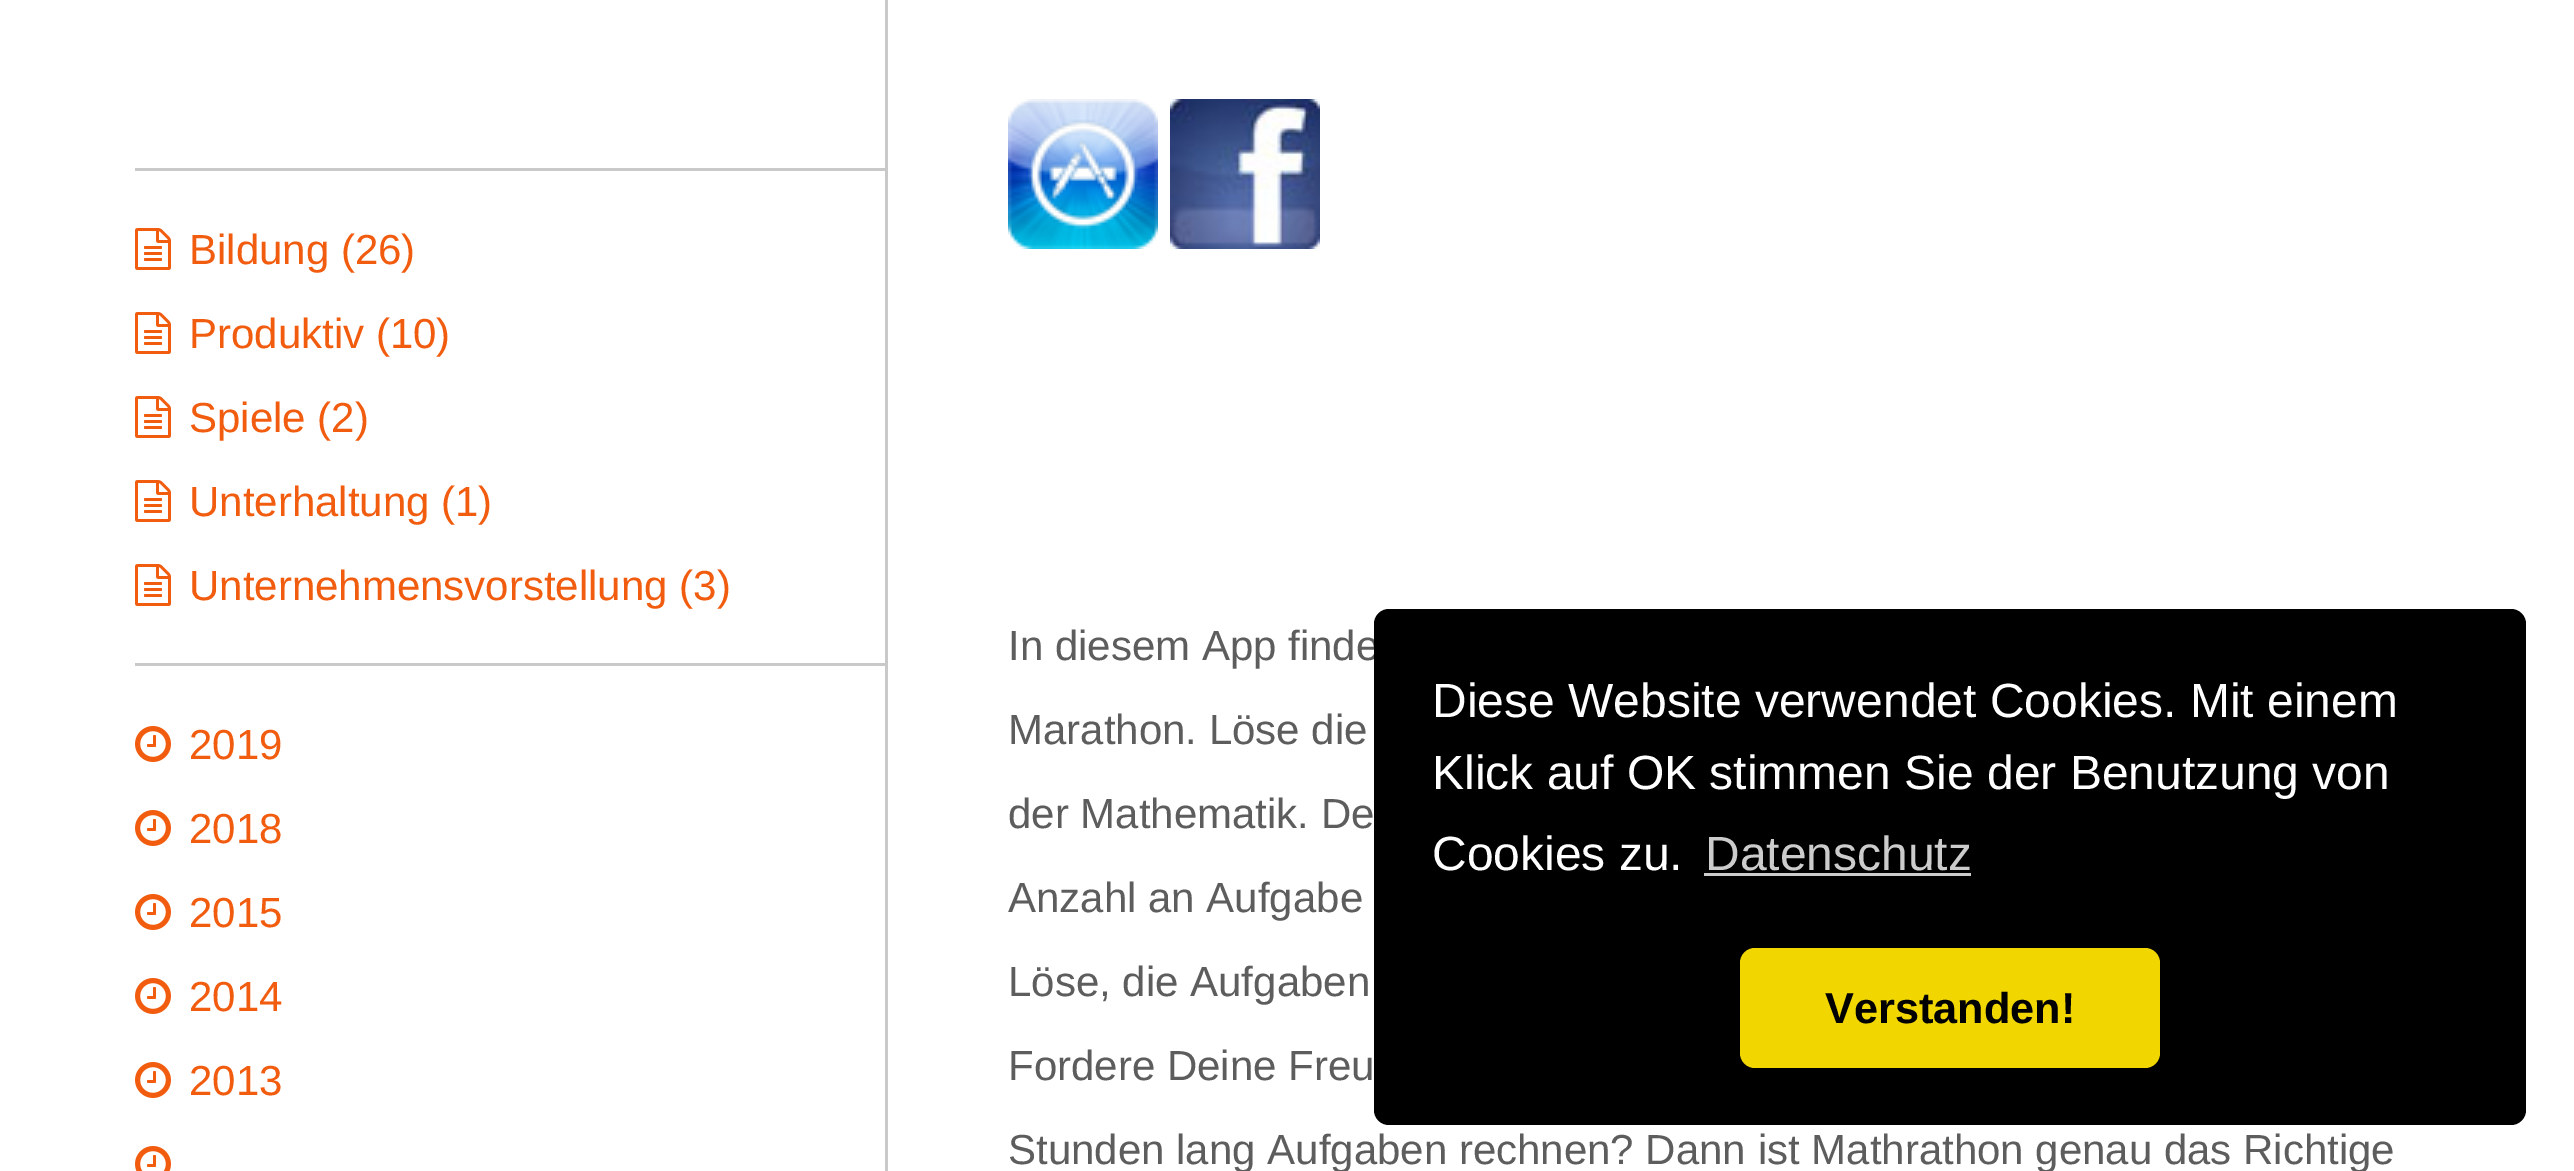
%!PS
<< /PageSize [2574 1171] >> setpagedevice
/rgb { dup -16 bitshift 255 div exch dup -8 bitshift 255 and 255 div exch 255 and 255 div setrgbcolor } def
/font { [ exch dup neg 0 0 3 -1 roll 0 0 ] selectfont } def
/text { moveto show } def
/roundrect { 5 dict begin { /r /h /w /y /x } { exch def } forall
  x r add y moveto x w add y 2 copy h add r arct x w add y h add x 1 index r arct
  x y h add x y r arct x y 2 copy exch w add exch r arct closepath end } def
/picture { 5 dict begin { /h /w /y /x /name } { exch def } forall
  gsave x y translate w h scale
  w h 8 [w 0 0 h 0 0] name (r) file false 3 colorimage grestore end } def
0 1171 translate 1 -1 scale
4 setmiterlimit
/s1 { /LiberationSans-Regular 42 font 16#F15C0F rgb } def
/s2 { /LiberationSans-Regular 42 font 16#5D5D5D rgb } def
/s3 { /LiberationSans-Regular 48 font 16#FFFFFF rgb } def
/s4 { /LiberationSans-Regular 48 font 16#CCCCCC rgb } def
/s5 { /LiberationSans-Bold 43.25 font 16#000000 rgb } def
16#FFFFFF rgb
0 0 2574 1171 rectfill
16#C9C9C9 rgb
885 0 3 1171 rectfill
135 168 750 3 rectfill
(pic1.raw) 135 228 36 42 picture
s1
(Bildung \(26\)) 189 264 text
(pic1.raw) 135 312 36 42 picture
(Produktiv \(10\)) 189 348 text
(pic1.raw) 135 396 36 42 picture
(Spiele \(2\)) 189 432 text
(pic1.raw) 135 480 36 42 picture
(Unterhaltung \(1\)) 189 516 text
(pic1.raw) 135 564 36 42 picture
(Unternehmensvorstellung \(3\)) 189 600 text
16#C9C9C9 rgb
135 663 750 3 rectfill
(pic2.raw) 135 726 36 36 picture
s1
(2019) 189 759 text
(pic2.raw) 135 810 36 36 picture
(2018) 189 843 text
(pic2.raw) 135 894 36 36 picture
(2015) 189 927 text
(pic2.raw) 135 978 36 36 picture
(2014) 189 1011 text
(pic2.raw) 135 1062 36 36 picture
(2013) 189 1095 text
(pic3.raw) 135 1146 36 25 picture
(pic4.raw) 1008 99 150 150 picture
(pic5.raw) 1170 99 150 150 picture
s2
(In diesem App finde) 1008 660 text
(Marathon. Löse die) 1008 744 text
(der Mathematik. De) 1008 828 text
(Anzahl an Aufgabe) 1008 912 text
(Löse, die Aufgaben) 1008 996 text
(Fordere Deine Freu) 1008 1080 text
(Stunden lang Aufgaben rechnen? Dann ist Mathrathon genau das Richtige) 1008 1164 text
16#000000 rgb
1374 609 1152 516 15 roundrect fill
s3
(Diese Website verwendet Cookies. Mit einem) 1432 717 text
(Klick auf OK stimmen Sie der Benutzung von) 1432 789 text
(Cookies zu.) 1432 870 text
s4
(Datenschutz) 1705 870 text
1704 873 267 3 rectfill
16#F1D600 rgb
1740 948 420 120 15 roundrect fill
s5
(Verstanden!) 1825 1023 text
showpage
